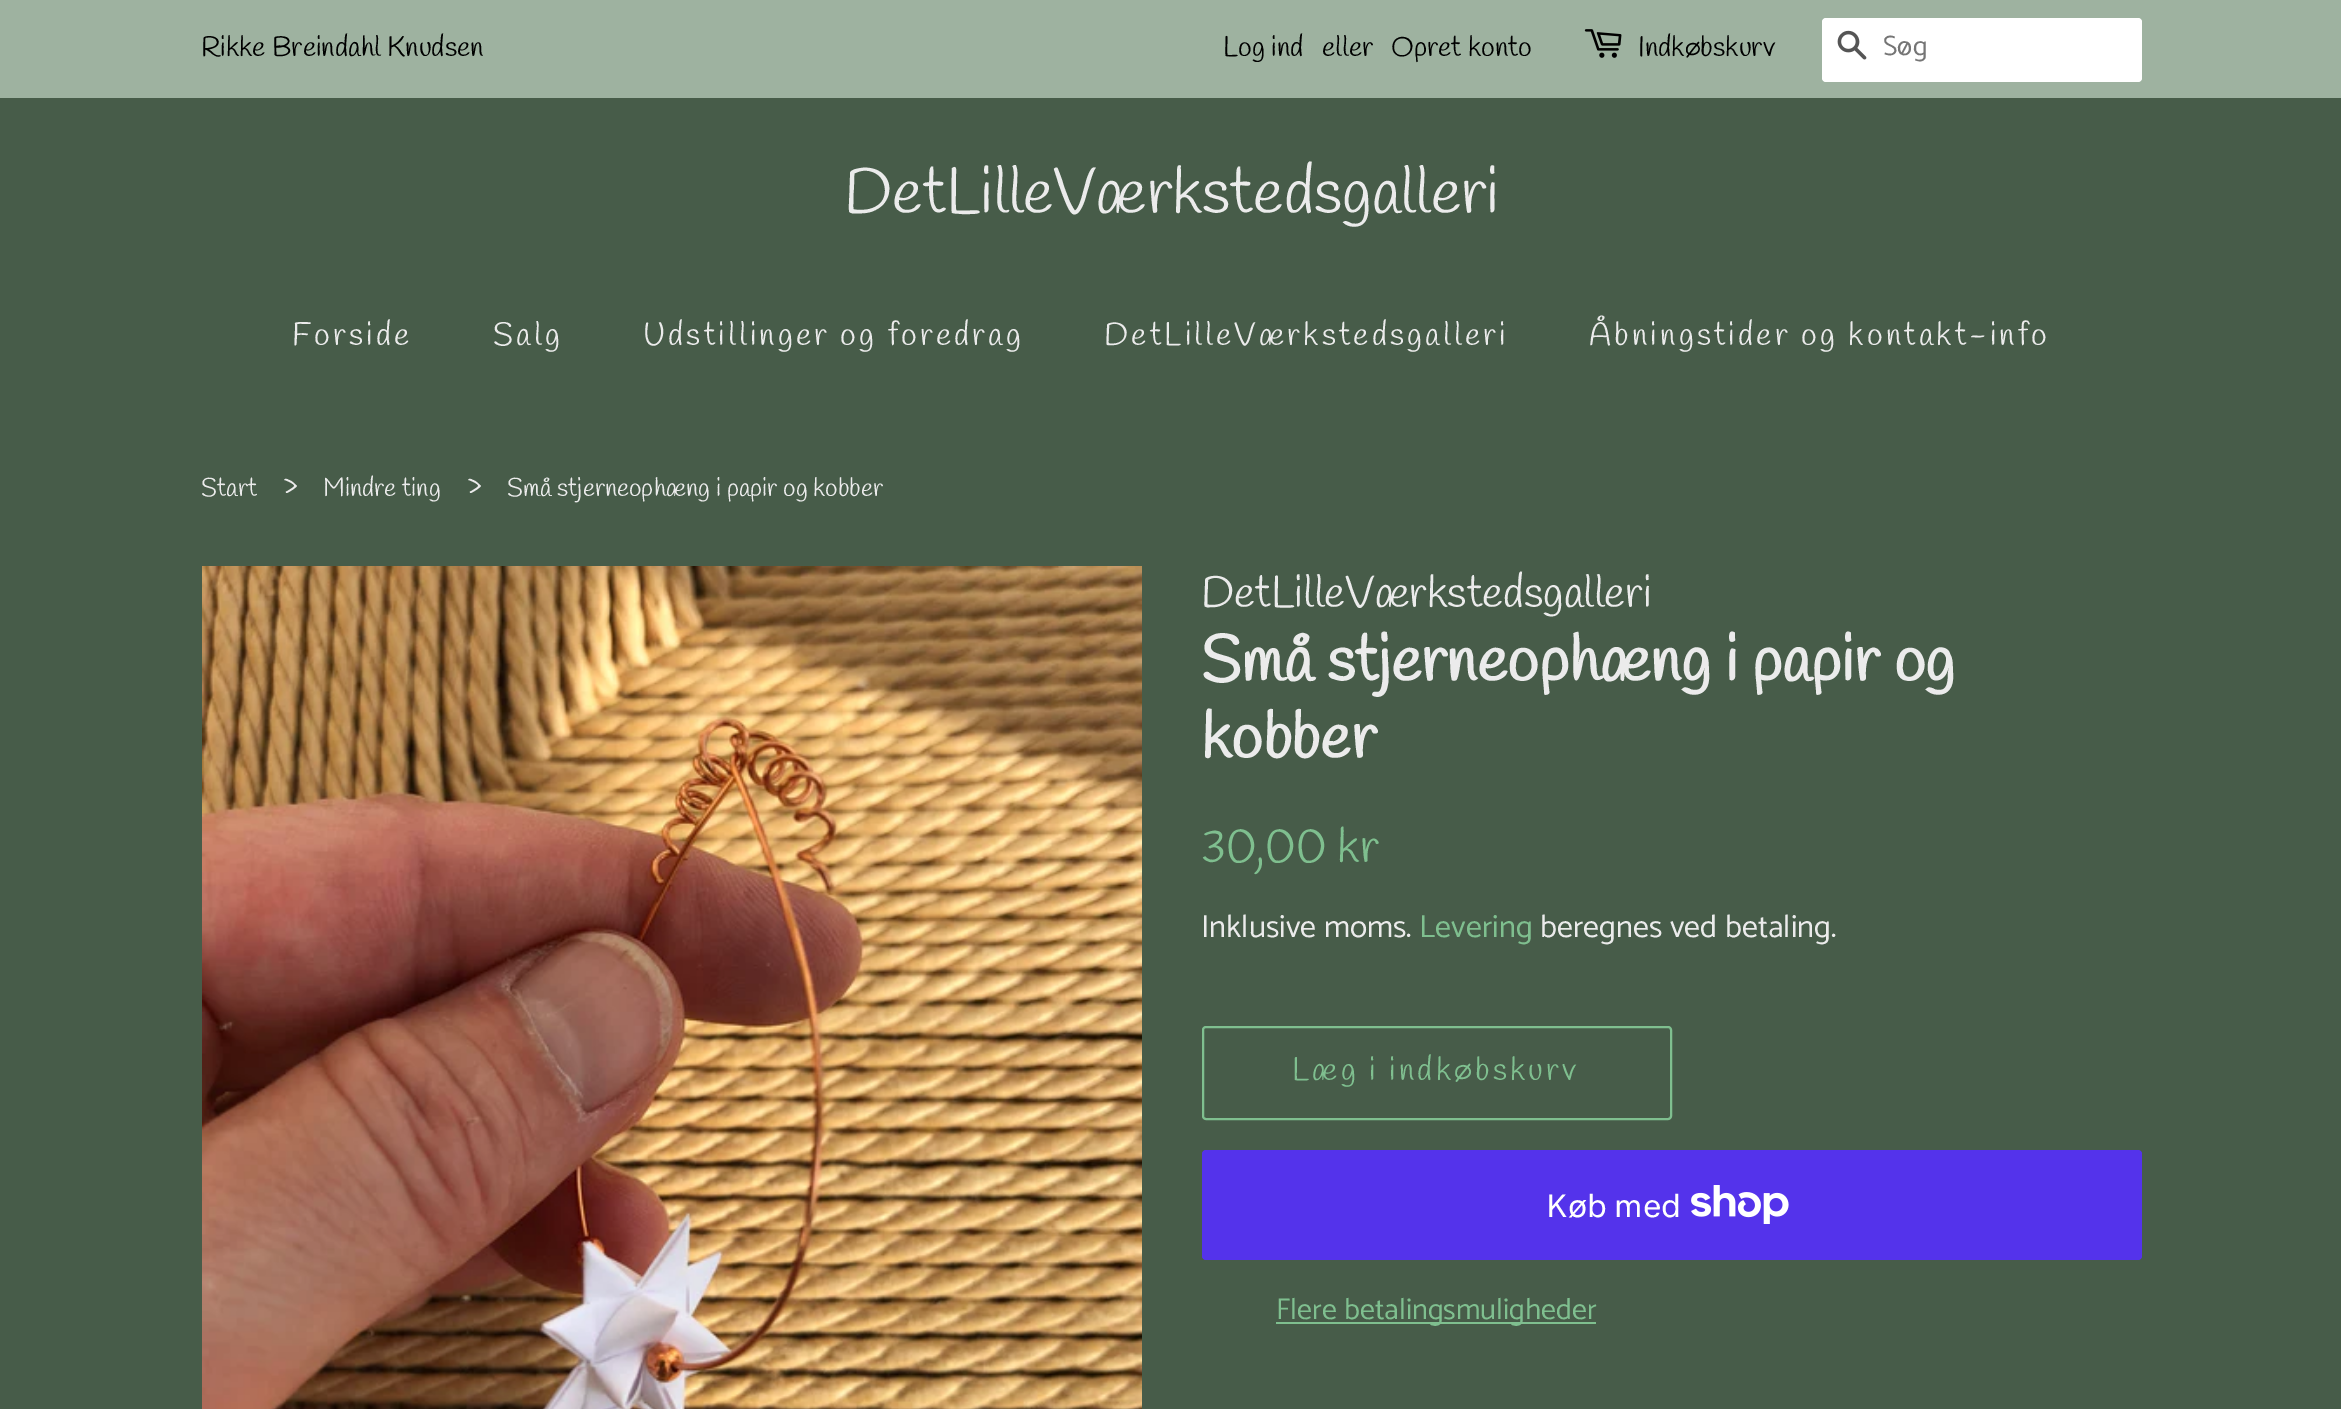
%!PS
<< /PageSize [2341 1409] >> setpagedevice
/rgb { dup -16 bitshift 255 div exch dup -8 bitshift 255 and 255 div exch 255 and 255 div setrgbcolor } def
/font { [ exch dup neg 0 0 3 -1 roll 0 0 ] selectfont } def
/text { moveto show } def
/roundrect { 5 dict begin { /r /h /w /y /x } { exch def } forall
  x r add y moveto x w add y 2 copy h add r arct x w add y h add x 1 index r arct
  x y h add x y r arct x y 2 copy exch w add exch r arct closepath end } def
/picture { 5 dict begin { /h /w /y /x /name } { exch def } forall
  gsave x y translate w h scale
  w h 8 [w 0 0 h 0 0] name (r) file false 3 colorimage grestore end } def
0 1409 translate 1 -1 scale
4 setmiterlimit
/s1 { /Handlee-Regular 28 font 16#000000 rgb } def
/s2 { /Catamaran-Regular 28 font 16#757575 rgb } def
/s3 { /Handlee-Regular 64 font 16#EBEBEB rgb } def
/s4 { /Handlee-Regular 25.5 font 16#EBEBEB rgb } def
/s5 { /Handlee-Regular 36 font 16#EBEBEB rgb } def
/s6 { /Handlee-Regular 44 font 16#EBEBEB rgb } def
/s7 { /Handlee-Bold 64 font 16#EBEBEB rgb } def
/s8 { /Handlee-Regular 47.5 font 16#7FBF8F rgb } def
/s9 { /Catamaran-Regular 32 font 16#EBEBEB rgb } def
/s10 { /Catamaran-Regular 32 font 16#7FBF8F rgb } def
/s11 { /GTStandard-Regular 32 font 16#FFFFFF rgb } def
/s12 { /Catamaran-Regular 30 font 16#7FBF8F rgb } def
16#475C49 rgb
0 0 2341 1409 rectfill
16#9EB2A0 rgb
0 0 2341 98 rectfill
s1
(Rikke Breindahl Knudsen) 201 56 text
(Log ind) 1223 56 text
(eller) 1322 56 text
(Opret konto) 1391 56 text
(pic1.raw) 1584 29 38 29 picture
(Indkøbskurv) 1638 56 text
16#FFFFFF rgb
1822 18 320 64 4 roundrect fill
(pic2.raw) 1837 30 30 30 picture
s2
(Søg) 1883 55 text
s3
(DetLilleVærkstedsgalleri) 844 213 text
/Handlee-Regular 32 font
292 345 moveto 3.2 0 (Forside) ashow
493 345 moveto 3.2 0 (Salg) ashow
643 345 moveto 3.2 0 (Udstillinger og foredrag) ashow
1104 345 moveto 3.2 0 (DetLilleVærkstedsgalleri) ashow
1589 345 moveto 3.2 0 (Åbningstider og kontakt-info) ashow
s4
(Start) 201 496 text
s5
(›) 283 496 text
s4
(Mindre ting) 323 496 text
s5
(›) 467 496 text
s4
(Små stjerneophæng i papir og kobber) 507 496 text
(pic3.raw) 202 566 940 843 picture
s6
(DetLilleVærkstedsgalleri) 1201 607 text
s7
(Små stjerneophæng i papir og) 1201 681 text
(kobber) 1201 758 text
s8
(30,00 kr) 1201 862 text
s9
(Inklusive moms.) 1201 937 text
s10
(Levering) 1419 937 text
s9
(beregnes ved betaling.) 1540 937 text
16#7FBF8F rgb
2 setlinewidth
1203 1027 468 92 3 roundrect stroke
/Handlee-Regular 32 font
1292 1080 moveto 3.2 0 (Læg i indkøbskurv) ashow
16#5433EB rgb
1202 1150 940 110 4 roundrect fill
s11
(Køb med) 1546 1217 text
(pic4.raw) 1691 1185 98 39 picture
16#7FBF8F rgb
1276 1322 320 2 rectfill
s12
(Flere betalingsmuligheder) 1276 1319 text
showpage
